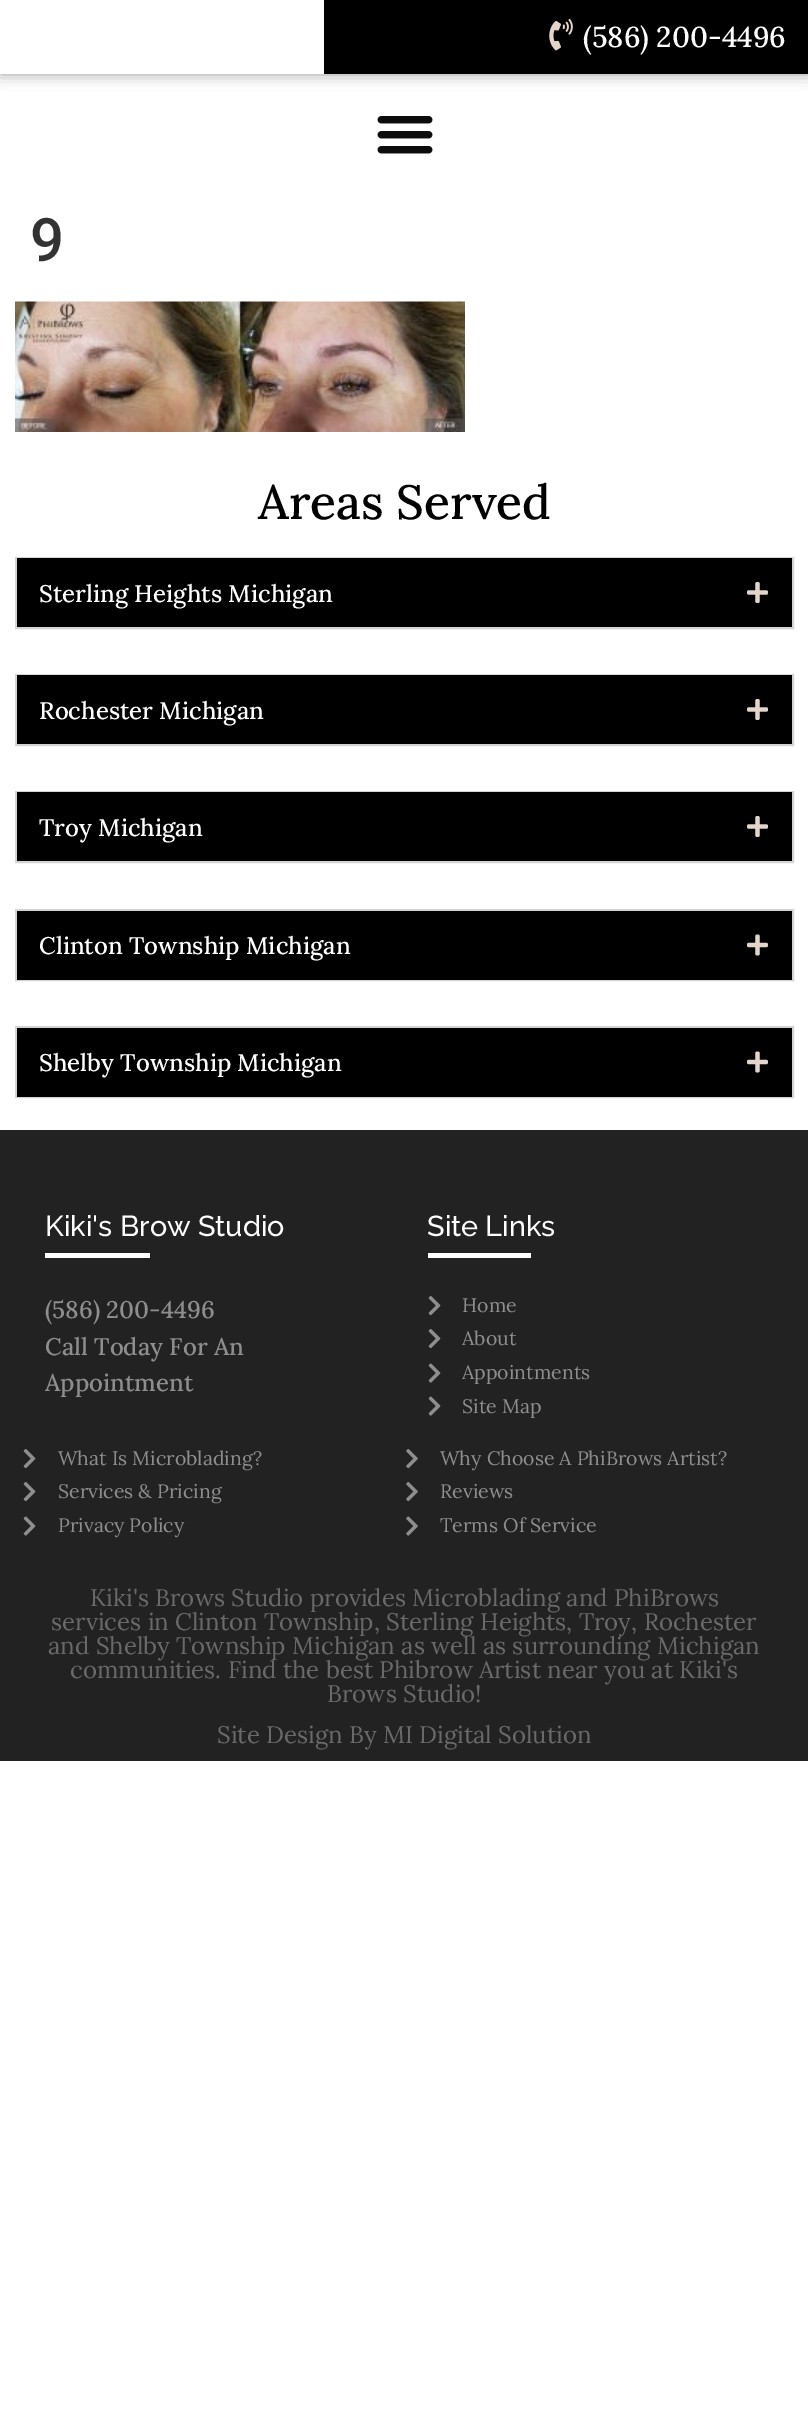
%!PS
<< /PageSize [808 2420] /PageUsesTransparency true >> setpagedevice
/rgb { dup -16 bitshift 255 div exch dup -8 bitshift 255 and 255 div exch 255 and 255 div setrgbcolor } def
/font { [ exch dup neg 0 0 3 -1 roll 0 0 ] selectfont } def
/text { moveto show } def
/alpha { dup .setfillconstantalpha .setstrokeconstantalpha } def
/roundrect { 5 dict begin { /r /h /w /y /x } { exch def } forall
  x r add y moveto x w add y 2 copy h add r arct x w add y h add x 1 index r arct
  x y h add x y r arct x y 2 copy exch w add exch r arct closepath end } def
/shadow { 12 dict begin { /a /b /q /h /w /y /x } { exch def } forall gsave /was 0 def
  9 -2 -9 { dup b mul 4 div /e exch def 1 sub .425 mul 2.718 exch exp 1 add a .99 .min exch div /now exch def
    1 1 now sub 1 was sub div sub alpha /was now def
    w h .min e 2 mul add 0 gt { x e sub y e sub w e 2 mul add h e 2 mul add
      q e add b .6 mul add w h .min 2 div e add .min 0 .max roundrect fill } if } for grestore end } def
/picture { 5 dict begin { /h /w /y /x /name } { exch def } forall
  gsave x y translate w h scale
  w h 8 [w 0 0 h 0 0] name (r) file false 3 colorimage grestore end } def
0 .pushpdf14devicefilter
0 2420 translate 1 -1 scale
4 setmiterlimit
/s1 { /Lora-Medium 28.75 font 16#FFFFFF rgb } def
/s2 { /Roboto-Medium 60 font 16#333333 rgb } def
/s3 { /Lora-Medium 48 font 16#000000 rgb } def
/s4 { /Lora-Medium 24 font 16#FFFFFF rgb } def
/s5 { /Raleway-Medium 28.75 font 16#FFFFFF rgb } def
/s6 { /Lora-Medium 24 font 16#8F8E8E rgb } def
/s7 { /Lora-Regular 19.5 font 16#8F8E8E rgb } def
/s8 { /Lora-Regular 24 font 16#696969 rgb } def
16#FFFFFF rgb
0 0 808 2420 rectfill
16#000000 rgb
0 0 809 74 0 7.5 0.39 shadow
16#FFFFFF rgb
0 0 324 74 rectfill
16#000000 rgb
324 0 484 74 rectfill
(pic1.raw) 549 18 24 33 picture
s1
(\(586\) 200-4496) 583 47 text
(pic2.raw) 377 116 56 38 picture
s2
(9) 30 261 text
(pic3.raw) 15 301 450 131 picture
s3
(Areas Served) 258 519 text
16#D4D4D4 rgb
2 setlinewidth
16 558 777 70 rectstroke
16#000000 rgb
17 558 775 69 rectfill
s4
(Sterling Heights Michigan) 39 602 text
(pic4.raw) 747 582 21 21 picture
16#D4D4D4 rgb
16 675 777 70 rectstroke
16#000000 rgb
17 675 775 69 rectfill
s4
(Rochester Michigan) 39 719 text
(pic4.raw) 747 699 21 21 picture
16#D4D4D4 rgb
16 792 777 70 rectstroke
16#000000 rgb
17 792 775 69 rectfill
s4
(Troy Michigan) 39 836 text
(pic4.raw) 747 816 21 21 picture
16#D4D4D4 rgb
16 910 777 70 rectstroke
16#000000 rgb
17 911 775 69 rectfill
s4
(Clinton Township Michigan) 39 954 text
(pic5.raw) 747 934 21 22 picture
16#D4D4D4 rgb
16 1027 777 70 rectstroke
16#000000 rgb
17 1028 775 69 rectfill
s4
(Shelby Township Michigan) 39 1071 text
(pic5.raw) 747 1051 21 22 picture
16#222222 rgb
0 1130 808 631 rectfill
s5
(Kiki's Brow Studio) 45 1236 text
45 1253 105 5 rectfill
s6
(\(586\) 200-4496) 45 1318 text
(Call Today For An) 45 1355 text
(Appointment) 45 1391 text
s5
(Site Links) 427 1236 text
428 1253 103 5 rectfill
(pic6.raw) 428 1296 13 20 picture
s7
(Home) 462 1312 text
(pic6.raw) 428 1329 13 20 picture
(About) 462 1345 text
(pic7.raw) 428 1363 13 20 picture
(Appointments) 462 1379 text
(pic7.raw) 428 1396 13 20 picture
(Site Map) 462 1413 text
(pic6.raw) 23 1449 13 20 picture
(What Is Microblading?) 58 1465 text
(pic6.raw) 23 1482 13 20 picture
(Services & Pricing) 58 1498 text
(pic7.raw) 23 1516 13 20 picture
(Privacy Policy) 58 1532 text
(pic8.raw) 406 1449 12 20 picture
(Why Choose A PhiBrows Artist?) 440 1465 text
(pic8.raw) 406 1482 12 20 picture
(Reviews) 440 1498 text
(pic9.raw) 406 1516 12 20 picture
(Terms Of Service) 440 1532 text
s8
(Kiki's Brows Studio provides Microblading and PhiBrows) 90 1606 text
(services in Clinton Township, Sterling Heights, Troy, Rochester) 51 1630 text
(and Shelby Township Michigan as well as surrounding Michigan) 48 1654 text
(communities. Find the best Phibrow Artist near you at Kiki's) 70 1678 text
(Brows Studio!) 327 1702 text
(Site Design By MI Digital Solution) 217 1743 text
.poppdf14devicefilter showpage
